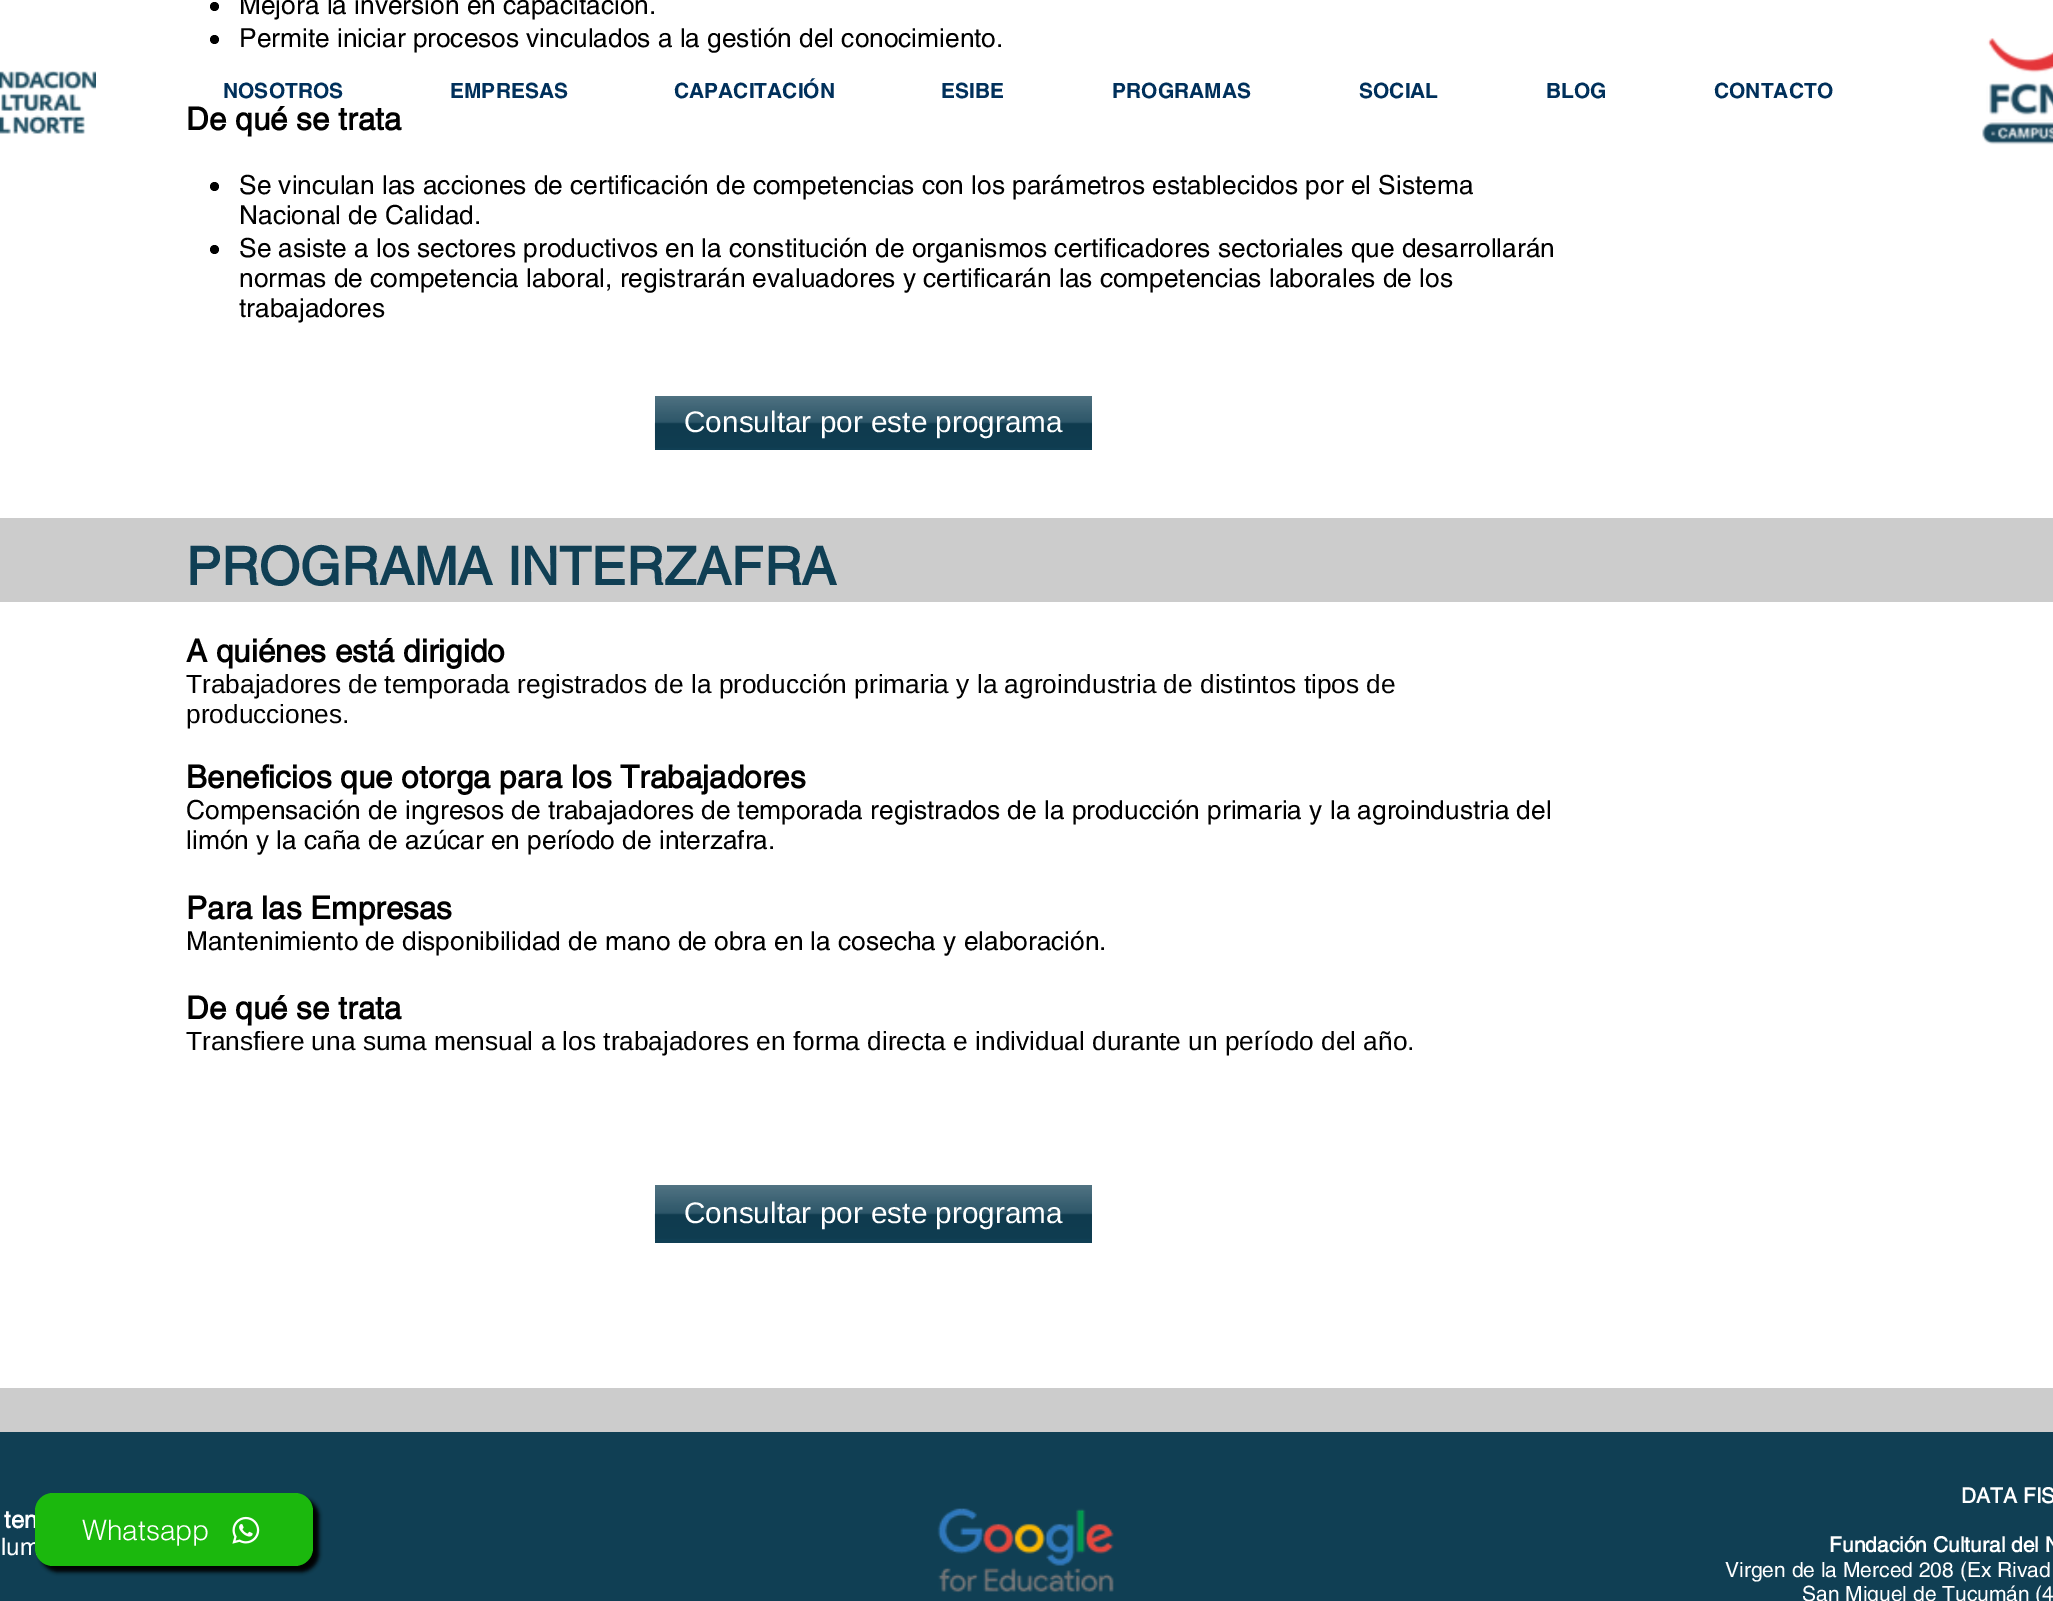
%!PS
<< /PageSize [2053 1601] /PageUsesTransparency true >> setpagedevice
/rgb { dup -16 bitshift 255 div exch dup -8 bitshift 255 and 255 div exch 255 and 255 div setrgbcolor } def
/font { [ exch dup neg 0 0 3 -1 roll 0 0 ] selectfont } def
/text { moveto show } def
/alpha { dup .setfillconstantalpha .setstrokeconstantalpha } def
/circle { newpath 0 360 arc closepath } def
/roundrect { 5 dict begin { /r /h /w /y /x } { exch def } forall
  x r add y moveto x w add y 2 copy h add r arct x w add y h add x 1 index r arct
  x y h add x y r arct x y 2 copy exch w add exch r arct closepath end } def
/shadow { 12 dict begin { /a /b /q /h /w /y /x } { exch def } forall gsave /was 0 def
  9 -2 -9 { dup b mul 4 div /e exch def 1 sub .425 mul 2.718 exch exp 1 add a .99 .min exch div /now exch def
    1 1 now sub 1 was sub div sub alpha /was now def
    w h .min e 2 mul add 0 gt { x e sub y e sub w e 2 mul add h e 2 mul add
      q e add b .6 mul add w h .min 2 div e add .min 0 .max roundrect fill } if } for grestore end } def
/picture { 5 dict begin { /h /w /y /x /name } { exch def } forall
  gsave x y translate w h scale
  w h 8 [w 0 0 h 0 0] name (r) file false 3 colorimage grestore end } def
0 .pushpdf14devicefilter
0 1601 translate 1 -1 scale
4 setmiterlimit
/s1 { /helvetica-Regular 26.25 font 16#000000 rgb } def
/s2 { /helvetica-Bold 31.5 font 16#000000 rgb } def
/s3 { /LiberationSans-Regular 29.75 font 16#FFFFFF rgb } def
/s4 { /helvetica-Bold 52.5 font 16#103F54 rgb } def
/s5 { /LiberationSans-Regular 26.25 font 16#000000 rgb } def
/s6 { /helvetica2-Bold 21 font 16#00305B rgb } def
/s7 { /helvetica-Bold 24 font 16#FFFFFF rgb } def
/s8 { /helvetica-Regular 24 font 16#FFFFFF rgb } def
/s9 { /helvetica-Bold 21 font 16#FFFFFF rgb } def
/s10 { /helvetica-Regular 21 font 16#FFFFFF rgb } def
/s11 { /helvetica-Light 28 font 16#FFFFFF rgb } def
16#FFFFFF rgb
0 0 2053 1601 rectfill
16#000000 rgb
214.5 6.5 4.5 circle fill
s1
(Mejora la inversión en capacitación.) 239 14 text
214.5 39.5 4.5 circle fill
(Permite iniciar procesos vinculados a la gestión del conocimiento.) 239 47 text
s2
(De qué se trata) 186 130 text
214.5 186.5 4.5 circle fill
s1
(Se vinculan las acciones de certificación de competencias con los parámetros establecidos por el Sistema) 239 194 text
(Nacional de Calidad.) 239 224 text
214.5 249.5 4.5 circle fill
(Se asiste a los sectores productivos en la constitución de organismos certificadores sectoriales que desarrollarán) 239 257 text
(normas de competencia laboral, registrarán evaluadores y certificarán las competencias laborales de los) 239 287 text
(trabajadores) 239 317 text
16#103F54 rgb
655 396 437 54 rectfill
(pic1.raw) 654 396 438 52 picture
s3
(Consultar por este programa) 684 432 text
16#CCCCCC rgb
0 518 2053 84 rectfill
s4
(PROGRAMA INTERZAFRA) 186 585 text
s2
(A quiénes está dirigido) 186 662 text
s5
(Trabajadores de temporada registrados de la producción primaria y la agroindustria de distintos tipos de) 186 693 text
(producciones.) 186 723 text
s2
(Beneficios que otorga para los Trabajadores) 186 788 text
s1
(Compensación de ingresos de trabajadores de temporada registrados de la producción primaria y la agroindustria del) 186 819 text
(limón y la caña de azúcar en período de interzafra.) 186 849 text
s2
(Para las Empresas) 186 919 text
s1
(Mantenimiento de disponibilidad de mano de obra en la cosecha y elaboración.) 186 950 text
s2
(De qué se trata) 186 1019 text
s5
(Transfiere una suma mensual a los trabajadores en forma directa e individual durante un período del año.) 186 1050 text
16#103F54 rgb
655 1185 437 58 rectfill
(pic2.raw) 654 1185 438 54 picture
s3
(Consultar por este programa) 684 1223 text
16#CCCCCC rgb
0 1388 2053 44 rectfill
(pic3.raw) 0 70 96 64 picture
s6
(NOSOTROS) 223 98 text
(EMPRESAS) 450 98 text
(CAPACITACIÓN) 674 98 text
(ESIBE) 941 98 text
(PROGRAMAS) 1112 98 text
(SOCIAL) 1359 98 text
(BLOG) 1546 98 text
(CONTACTO) 1714 98 text
(pic4.raw) 1982 38 71 107 picture
16#103F54 rgb
0 1432 2053 169 rectfill
s7
(ten) 4 1528 text
s8
(lum) 1 1555 text
(pic5.raw) 937 1508 177 85 picture
s9
(DATA FIS) 1961 1503 text
(Fundación Cultural del N) 1829 1552 text
s10
(Virgen de la Merced 208 \(Ex Rivad) 1725 1577 text
(San Miguel de Tucumán \(4) 1802 1601 text
16#000000 rgb
40 1498 279 74 18 2 1 shadow
16#1BB80D rgb
35 1493 278 73 18 roundrect fill
s11
(Whatsapp) 82 1540 text
(pic6.raw) 232 1516 28 28 picture
.poppdf14devicefilter showpage
